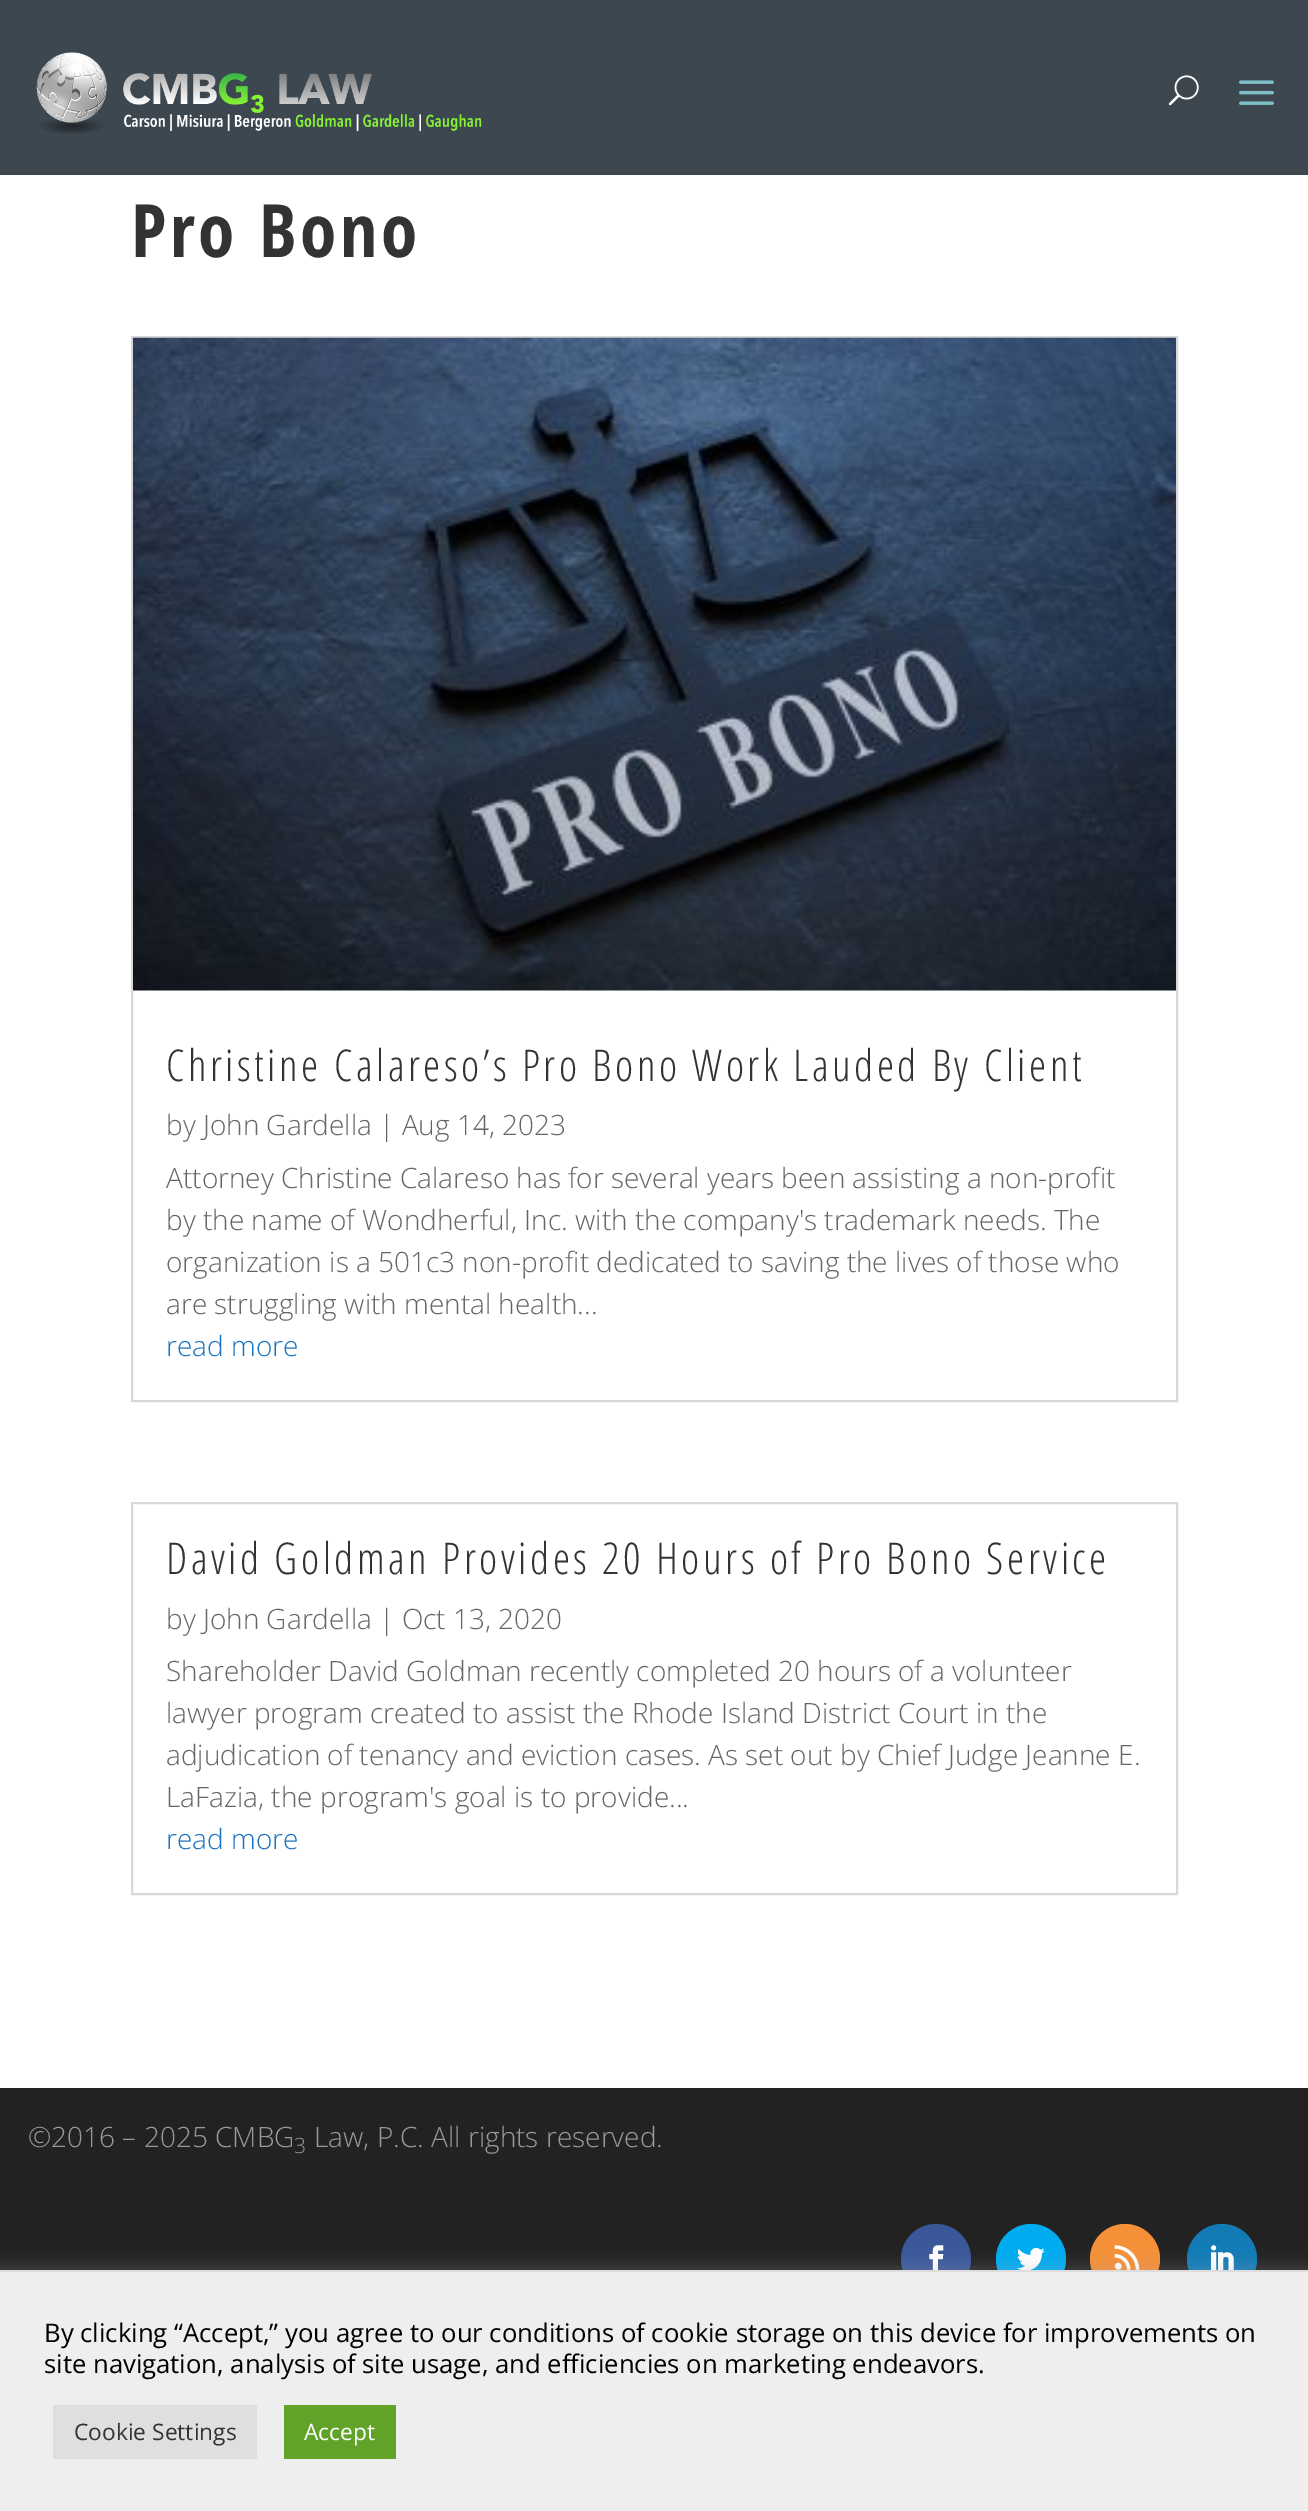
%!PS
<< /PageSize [1308 2511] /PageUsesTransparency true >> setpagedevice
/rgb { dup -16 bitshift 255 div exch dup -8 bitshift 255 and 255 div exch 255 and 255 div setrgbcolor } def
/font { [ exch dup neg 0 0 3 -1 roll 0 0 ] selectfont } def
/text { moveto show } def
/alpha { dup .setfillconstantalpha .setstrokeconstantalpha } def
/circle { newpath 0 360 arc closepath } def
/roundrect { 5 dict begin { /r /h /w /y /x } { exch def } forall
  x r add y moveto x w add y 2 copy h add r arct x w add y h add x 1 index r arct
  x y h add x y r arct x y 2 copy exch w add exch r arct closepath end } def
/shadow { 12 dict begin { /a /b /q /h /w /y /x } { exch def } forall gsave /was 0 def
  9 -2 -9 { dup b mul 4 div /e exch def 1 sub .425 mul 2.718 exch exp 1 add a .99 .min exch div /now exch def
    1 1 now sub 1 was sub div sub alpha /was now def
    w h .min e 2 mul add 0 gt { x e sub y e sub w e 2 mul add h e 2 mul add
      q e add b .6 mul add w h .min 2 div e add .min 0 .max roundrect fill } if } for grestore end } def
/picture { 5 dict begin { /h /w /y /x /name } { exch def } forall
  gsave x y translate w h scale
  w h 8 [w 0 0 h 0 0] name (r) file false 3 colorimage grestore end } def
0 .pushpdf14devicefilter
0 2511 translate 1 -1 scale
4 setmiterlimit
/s1 { /OpenSans-Light 28 font 16#666666 rgb } def
/s2 { /OpenSans-Light 28 font 16#1E73BE rgb } def
/s3 { /OpenSans-Light 28 font 16#999999 rgb } def
/s4 { /OpenSans-Light 21 font 16#999999 rgb } def
/s5 { /OpenSans-Regular 25.65 font 16#000000 rgb } def
/s6 { /OpenSans-Regular 22.75 font 16#333333 rgb } def
/s7 { /OpenSans-Regular 22.75 font 16#FFFFFF rgb } def
16#222222 rgb
0 0 1308 2511 rectfill
16#3D4750 rgb
0 0 1308 175 rectfill
(pic1.raw) 36 52 446 82 picture
(pic2.raw) 1168 75 31 31 picture
(pic3.raw) 1239 80 35 25 picture
16#FFFFFF rgb
0 175 1308 1913 rectfill
/OpenSansCondensed-Bold 73.5 font
16#333333 rgb
131 257 moveto 3.5 0 (Pro Bono) ashow
16#D8D8D8 rgb
2 setlinewidth
132 337 1045 1064 rectstroke
(pic4.raw) 133 337 1043 654 picture
/OpenSansCondensed-Light 43.75 font
16#333333 rgb
166 1081 moveto 3.5 0 (Christine Calareso’s Pro Bono Work Lauded By Client) ashow
s1
(by John Gardella | Aug 14, 2023) 166 1135 text
(Attorney Christine Calareso has for several years been assisting a non-profit) 166 1188 text
(by the name of Wondherful, Inc. with the company's trademark needs. The) 166 1230 text
(organization is a 501c3 non-profit dedicated to saving the lives of those who) 166 1272 text
(are struggling with mental health...) 166 1314 text
s2
(read more) 166 1356 text
16#D8D8D8 rgb
132 1503 1045 391 rectstroke
/OpenSansCondensed-Light 43.75 font
16#333333 rgb
166 1574 moveto 3.5 0 (David Goldman Provides 20 Hours of Pro Bono Service) ashow
s1
(by John Gardella | Oct 13, 2020) 166 1629 text
(Shareholder David Goldman recently completed 20 hours of a volunteer) 166 1681 text
(lawyer program created to assist the Rhode Island District Court in the) 166 1723 text
(adjudication of tenancy and eviction cases. As set out by Chief Judge Jeanne E.) 166 1765 text
(LaFazia, the program's goal is to provide...) 166 1807 text
s2
(read more) 166 1849 text
s3
(©2016 – 2025 CMBG) 28 2147 text
s4
(3) 294 2153 text
s3
(Law, P.C. All rights reserved.) 314 2147 text
16#3A579A rgb
936 2259 35 circle fill
(pic5.raw) 929 2245 15 25 picture
16#00ABF0 rgb
1031 2259 35 circle fill
(pic6.raw) 1017 2247 28 23 picture
16#F59038 rgb
1125 2259 35 circle fill
(pic7.raw) 1114 2245 26 25 picture
16#127BB6 rgb
1222 2259 35 circle fill
(pic8.raw) 1211 2245 23 25 picture
16#ACABAB rgb
0 2268 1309 242 0 9 0.3 shadow
16#EEEEEE rgb
0 2272 1308 239 rectfill
16#DDDDDD rgb
0 2270 1308 2 rectfill
s5
(By clicking “Accept,” you agree to our conditions of cookie storage on this device for improvements on) 44 2342 text
(site navigation, analysis of site usage, and efficiencies on marketing endeavors.) 44 2373 text
16#DEDFE0 rgb
53 2405 204 54 rectfill
s6
(Cookie Settings) 74 2440 text
16#61A229 rgb
284 2405 112 54 rectfill
s7
(Accept) 304 2440 text
.poppdf14devicefilter showpage
